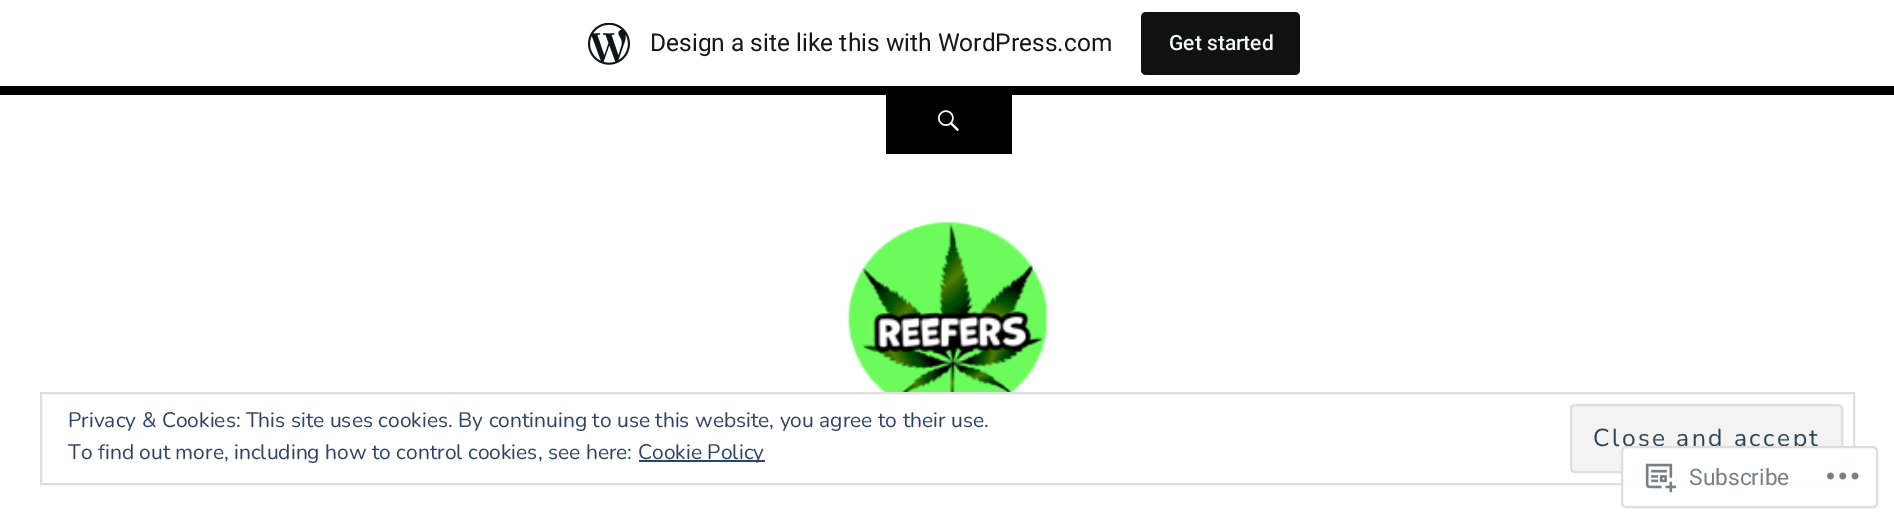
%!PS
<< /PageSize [1894 524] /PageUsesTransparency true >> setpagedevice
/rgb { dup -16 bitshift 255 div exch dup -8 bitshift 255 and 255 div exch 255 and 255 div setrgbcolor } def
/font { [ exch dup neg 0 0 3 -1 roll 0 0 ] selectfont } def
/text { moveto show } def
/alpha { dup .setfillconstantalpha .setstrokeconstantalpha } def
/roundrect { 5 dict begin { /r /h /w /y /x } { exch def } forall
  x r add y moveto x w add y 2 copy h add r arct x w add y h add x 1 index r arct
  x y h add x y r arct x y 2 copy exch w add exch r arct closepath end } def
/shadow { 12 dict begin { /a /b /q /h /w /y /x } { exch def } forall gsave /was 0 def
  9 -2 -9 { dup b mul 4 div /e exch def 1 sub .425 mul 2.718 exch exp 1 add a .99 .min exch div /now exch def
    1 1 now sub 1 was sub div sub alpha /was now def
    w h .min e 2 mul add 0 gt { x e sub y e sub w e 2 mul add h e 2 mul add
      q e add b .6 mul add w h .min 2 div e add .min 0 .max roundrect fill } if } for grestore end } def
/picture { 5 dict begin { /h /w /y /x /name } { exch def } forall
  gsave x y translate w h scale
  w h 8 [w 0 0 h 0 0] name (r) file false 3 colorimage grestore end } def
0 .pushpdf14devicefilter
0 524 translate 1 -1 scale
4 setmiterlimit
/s1 { /Roboto-Regular 24.5 font 16#171717 rgb } def
/s2 { /Roboto-Medium 21 font 16#F6F7F7 rgb } def
/s3 { /Nunito-Regular 21 font 16#2E4467 rgb } def
/s4 { /Roboto-Regular 22.75 font 16#7B7F84 rgb } def
16#FFFFFF rgb
0 0 1894 524 rectfill
16#000000 rgb
0 86 1894 9 rectfill
0 2 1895 86 0 2 0.05 shadow
16#FFFFFF rgb
0 0 1894 86 rectfill
(pic1.raw) 588 23 42 42 picture
s1
(Design a site like this with WordPress.com) 650 51 text
16#111111 rgb
1141 12 159 63 5 roundrect fill
s2
(Get started) 1169 50 text
16#000000 rgb
886 95 126 59 rectfill
(pic2.raw) 938 110 21 22 picture
(pic3.raw) 848 221 199 171 picture
16#DEDEDE rgb
2 setlinewidth
41 393 1813 91 rectstroke
s3
(Privacy & Cookies: This site uses cookies. By continuing to use this website, you agree to their use.) 68 427 text
16#F3F3F3 rgb
1571 405 271 67 4 roundrect gsave fill grestore
16#DEDEDE rgb
stroke
/Nunito-Regular 24.5 font
16#2E4453 rgb
1593 446 moveto 2.5 0 (Close and accept) ashow
s3
(To find out more, including how to control cookies, see here:) 68 459 text
639 460 126 2 rectfill
(Cookie Policy) 638 459 text
0.98 alpha
16#FFFFFF rgb
1621 446 257 62 5 roundrect fill
16#DCDCDE rgb
1622 447 255 60 4 roundrect stroke
1 alpha
(pic4.raw) 1645 463 32 30 picture
s4
(Subscribe) 1689 485 text
(pic5.raw) 1827 472 32 8 picture
.poppdf14devicefilter showpage
